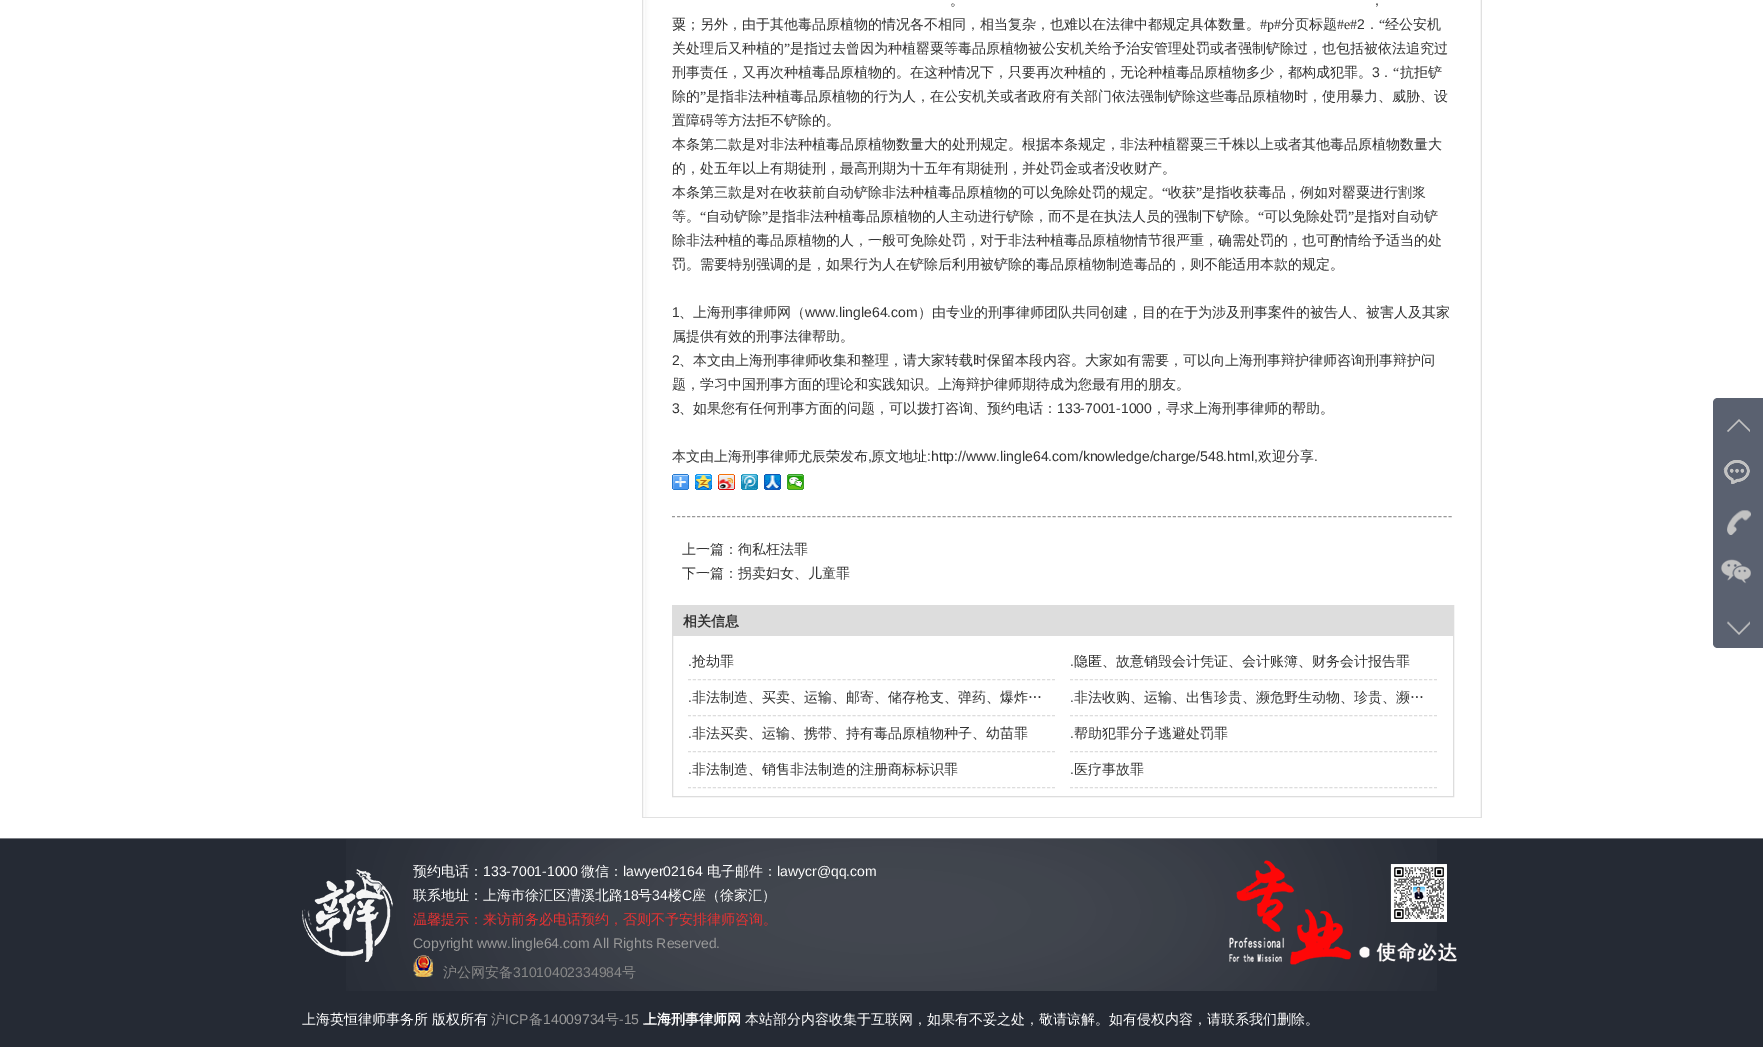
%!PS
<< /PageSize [1763 1047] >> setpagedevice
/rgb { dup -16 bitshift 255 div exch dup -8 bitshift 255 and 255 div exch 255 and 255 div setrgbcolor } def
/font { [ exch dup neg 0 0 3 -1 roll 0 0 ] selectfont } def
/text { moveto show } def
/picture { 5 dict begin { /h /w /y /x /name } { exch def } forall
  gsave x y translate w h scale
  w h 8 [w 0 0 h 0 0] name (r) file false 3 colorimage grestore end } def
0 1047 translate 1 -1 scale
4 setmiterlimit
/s1 { /WenQuanYiZenHei-Medium 14 font 16#333333 rgb } def
/s2 { /LiberationSerif-Regular 14 font 16#333333 rgb } def
/s3 { /LiberationSans-Regular 14 font 16#333333 rgb } def
/s4 { /WenQuanYiZenHei-Bold 14 font 16#333333 rgb } def
/s5 { /WenQuanYiZenHei-Medium 14 font 16#FFFFFF rgb } def
/s6 { /LiberationSans-Regular 14 font 16#FFFFFF rgb } def
/s7 { /WenQuanYiZenHei-Medium 14 font 16#E53333 rgb } def
/s8 { /LiberationSans-Regular 14 font 16#999999 rgb } def
/s9 { /WenQuanYiZenHei-Medium 14 font 16#888888 rgb } def
/s10 { /LiberationSans-Regular 14 font 16#888888 rgb } def
/s11 { /WenQuanYiZenHei-Medium 14 font 16#999999 rgb } def
/s12 { /WenQuanYiZenHei-Bold 14 font 16#FFFFFF rgb } def
16#FFFFFF rgb
0 0 1763 1047 rectfill
(pic1.raw) 642 0 840 817 picture
16#E1E1E1 rgb
642 817 840 1 rectfill
s1
(。) 950 5 text
(，) 1370 5 text
(粟；另外，由于其他毒品原植物的情况各不相同，相当复杂，也难以在法律中都规定具体数量。) 672 29 text
s2
(#p#) 1260 29 text
s1
(分页标题) 1281 29 text
s2
(#e#) 1337 29 text
s3
(2) 1357 29 text
s2
(“) 1379 29 text
s1
(经公安机) 1385 29 text
(．) 1365 29 text
(关处理后又种植的) 672 53 text
s2
(”) 784 53 text
s1
(是指过去曾因为种植罂粟等毒品原植物被公安机关给予治安管理处罚或者强制铲除过，也包括被依法追究过) 790 53 text
(刑事责任，又再次种植毒品原植物的。在这种情况下，只要再次种植的，无论种植毒品原植物多少，都构成犯罪。) 672 77 text
s3
(3) 1372 77 text
s2
(“) 1393 77 text
s1
(抗拒铲) 1400 77 text
(．) 1379 77 text
(除的) 672 101 text
s2
(”) 700 101 text
s1
(是指非法种植毒品原植物的行为人，在公安机关或者政府有关部门依法强制铲除这些毒品原植物时，使用暴力、威胁、设) 706 101 text
(置障碍等方法拒不铲除的。) 672 125 text
(本条第二款是对非法种植毒品原植物数量大的处刑规定。根据本条规定，非法种植罂粟三千株以上或者其他毒品原植物数量大) 672 149 text
(的，处五年以上有期徒刑，最高刑期为十五年有期徒刑，并处罚金或者没收财产。) 672 173 text
(本条第三款是对在收获前自动铲除非法种植毒品原植物的可以免除处罚的规定。) 672 197 text
s2
(“) 1162 197 text
s1
(收获) 1168 197 text
s2
(”) 1196 197 text
s1
(是指收获毒品，例如对罂粟进行割浆) 1202 197 text
(等。) 672 221 text
s2
(“) 700 221 text
s1
(自动铲除) 706 221 text
s2
(”) 762 221 text
s1
(是指非法种植毒品原植物的人主动进行铲除，而不是在执法人员的强制下铲除。) 768 221 text
s2
(“) 1258 221 text
s1
(可以免除处罚) 1264 221 text
s2
(”) 1348 221 text
s1
(是指对自动铲) 1354 221 text
(除非法种植的毒品原植物的人，一般可免除处罚，对于非法种植毒品原植物情节很严重，确需处罚的，也可酌情给予适当的处) 672 245 text
(罚。需要特别强调的是，如果行为人在铲除后利用被铲除的毒品原植物制造毒品的，则不能适用本款的规定。) 672 269 text
s3
(1) 672 317 text
s1
(、上海刑事律师网（) 679 317 text
s3
(www.lingle64.com) 805 317 text
s1
(）由专业的刑事律师团队共同创建，目的在于为涉及刑事案件的被告人、被害人及其家) 918 317 text
(属提供有效的刑事法律帮助。) 672 341 text
s3
(2) 672 365 text
s1
(、本文由上海刑事律师收集和整理，请大家转载时保留本段内容。大家如有需要，可以向上海刑事辩护律师咨询刑事辩护问) 679 365 text
(题，学习中国刑事方面的理论和实践知识。上海辩护律师期待成为您最有用的朋友。) 672 389 text
s3
(3) 672 413 text
s1
(、如果您有任何刑事方面的问题，可以拨打咨询、预约电话：) 679 413 text
s3
(133-7001-1000) 1057 413 text
s1
(，寻求上海刑事律师的帮助。) 1152 413 text
(本文由上海刑事律师尤辰荣发布) 672 461 text
s3
(,) 868 461 text
s1
(原文地址) 871 461 text
s3
(:http://www.lingle64.com/knowledge/charge/548.html,) 927 461 text
s1
(欢迎分享) 1258 461 text
s3
(.) 1314 461 text
(pic2.raw) 672 474 17 16 picture
(pic3.raw) 695 474 17 16 picture
(pic4.raw) 718 474 17 16 picture
(pic5.raw) 741 474 17 16 picture
(pic6.raw) 764 474 17 16 picture
(pic7.raw) 787 474 17 16 picture
16#999999 rgb
[3 2.01] 0 setdash
672 516.5 moveto 1452 516.5 lineto stroke
s1
(上一篇：徇私枉法罪) 682 554 text
(下一篇：拐卖妇女、儿童罪) 682 578 text
16#DDDDDD rgb
[] 0 setdash
672.5 605.5 781 191 rectstroke
673 606 780 30 rectfill
s4
(相关信息) 683 626 text
16#DDDDDD rgb
[3 1.99] 0 setdash
688 679.5 moveto 1055 679.5 lineto stroke
s3
(.) 688 666 text
s1
(抢劫罪) 692 666 text
16#DDDDDD rgb
1070 679.5 moveto 1437 679.5 lineto stroke
s3
(.) 1070 666 text
s1
(隐匿、故意销毁会计凭证、会计账簿、财务会计报告罪) 1074 666 text
16#DDDDDD rgb
688 715.5 moveto 1055 715.5 lineto stroke
s3
(.) 688 702 text
s1
(非法制造、买卖、运输、邮寄、储存枪支、弹药、爆炸…) 692 702 text
16#DDDDDD rgb
1070 715.5 moveto 1437 715.5 lineto stroke
s3
(.) 1070 702 text
s1
(非法收购、运输、出售珍贵、濒危野生动物、珍贵、濒…) 1074 702 text
16#DDDDDD rgb
688 751.5 moveto 1055 751.5 lineto stroke
s3
(.) 688 738 text
s1
(非法买卖、运输、携带、持有毒品原植物种子、幼苗罪) 692 738 text
16#DDDDDD rgb
1070 751.5 moveto 1437 751.5 lineto stroke
s3
(.) 1070 738 text
s1
(帮助犯罪分子逃避处罚罪) 1074 738 text
16#DDDDDD rgb
688 787.5 moveto 1055 787.5 lineto stroke
s3
(.) 688 774 text
s1
(非法制造、销售非法制造的注册商标标识罪) 692 774 text
16#DDDDDD rgb
1070 787.5 moveto 1437 787.5 lineto stroke
s3
(.) 1070 774 text
s1
(医疗事故罪) 1074 774 text
16#5A6170 rgb
1718 398 moveto 1763 398 lineto 1763 648 lineto 1718 648 lineto 1715 648 1713 646 1713 643 curveto 1713 403 lineto 1713 400 1715 398 1718 398 curveto closepath fill
(pic8.raw) 1727 419 23 13 picture
(pic9.raw) 1723 460 27 24 picture
(pic10.raw) 1727 510 24 25 picture
(pic11.raw) 1721 559 30 25 picture
(pic12.raw) 1727 621 23 14 picture
16#252A34 rgb
0 839 1763 208 rectfill
16#7C7F85 rgb
0 838 1763 1 rectfill
(pic13.raw) 346 839 1091 152 picture
(pic14.raw) 302 869 91 93 picture
s5
(预约电话：) 413 876 text
s6
(133-7001-1000) 483 876 text
s5
(微信：) 581 876 text
s6
(lawyer02164) 623 876 text
s5
(电子邮件：) 707 876 text
s6
(lawycr@qq.com) 777 876 text
s5
(联系地址：上海市徐汇区漕溪北路) 413 900 text
s6
(18) 623 900 text
s5
(号) 638 900 text
s6
(34) 652 900 text
s5
(楼) 668 900 text
s6
(C) 682 900 text
s5
(座（徐家汇）) 692 900 text
s7
(温馨提示：来访前务必电话预约，否则不予安排律师咨询。) 413 924 text
s8
(Copyright www.lingle64.com All Rights Reserved.) 413 948 text
(pic15.raw) 413 955 20 22 picture
s9
(沪公网安备) 443 977 text
s10
(31010402334984) 513 977 text
s9
(号) 622 977 text
(pic16.raw) 1229 860 228 105 picture
s5
(上海英恒律师事务所 版权所有) 302 1024 text
s11
(沪) 491 1024 text
s8
(ICP) 505 1024 text
s11
(备) 529 1024 text
s8
(14009734) 543 1024 text
s11
(号) 605 1024 text
s8
(-15) 619 1024 text
s12
(上海刑事律师网) 643 1024 text
s5
(本站部分内容收集于互联网，如果有不妥之处，敬请谅解。如有侵权内容，请联系我们删除。) 745 1024 text
showpage
